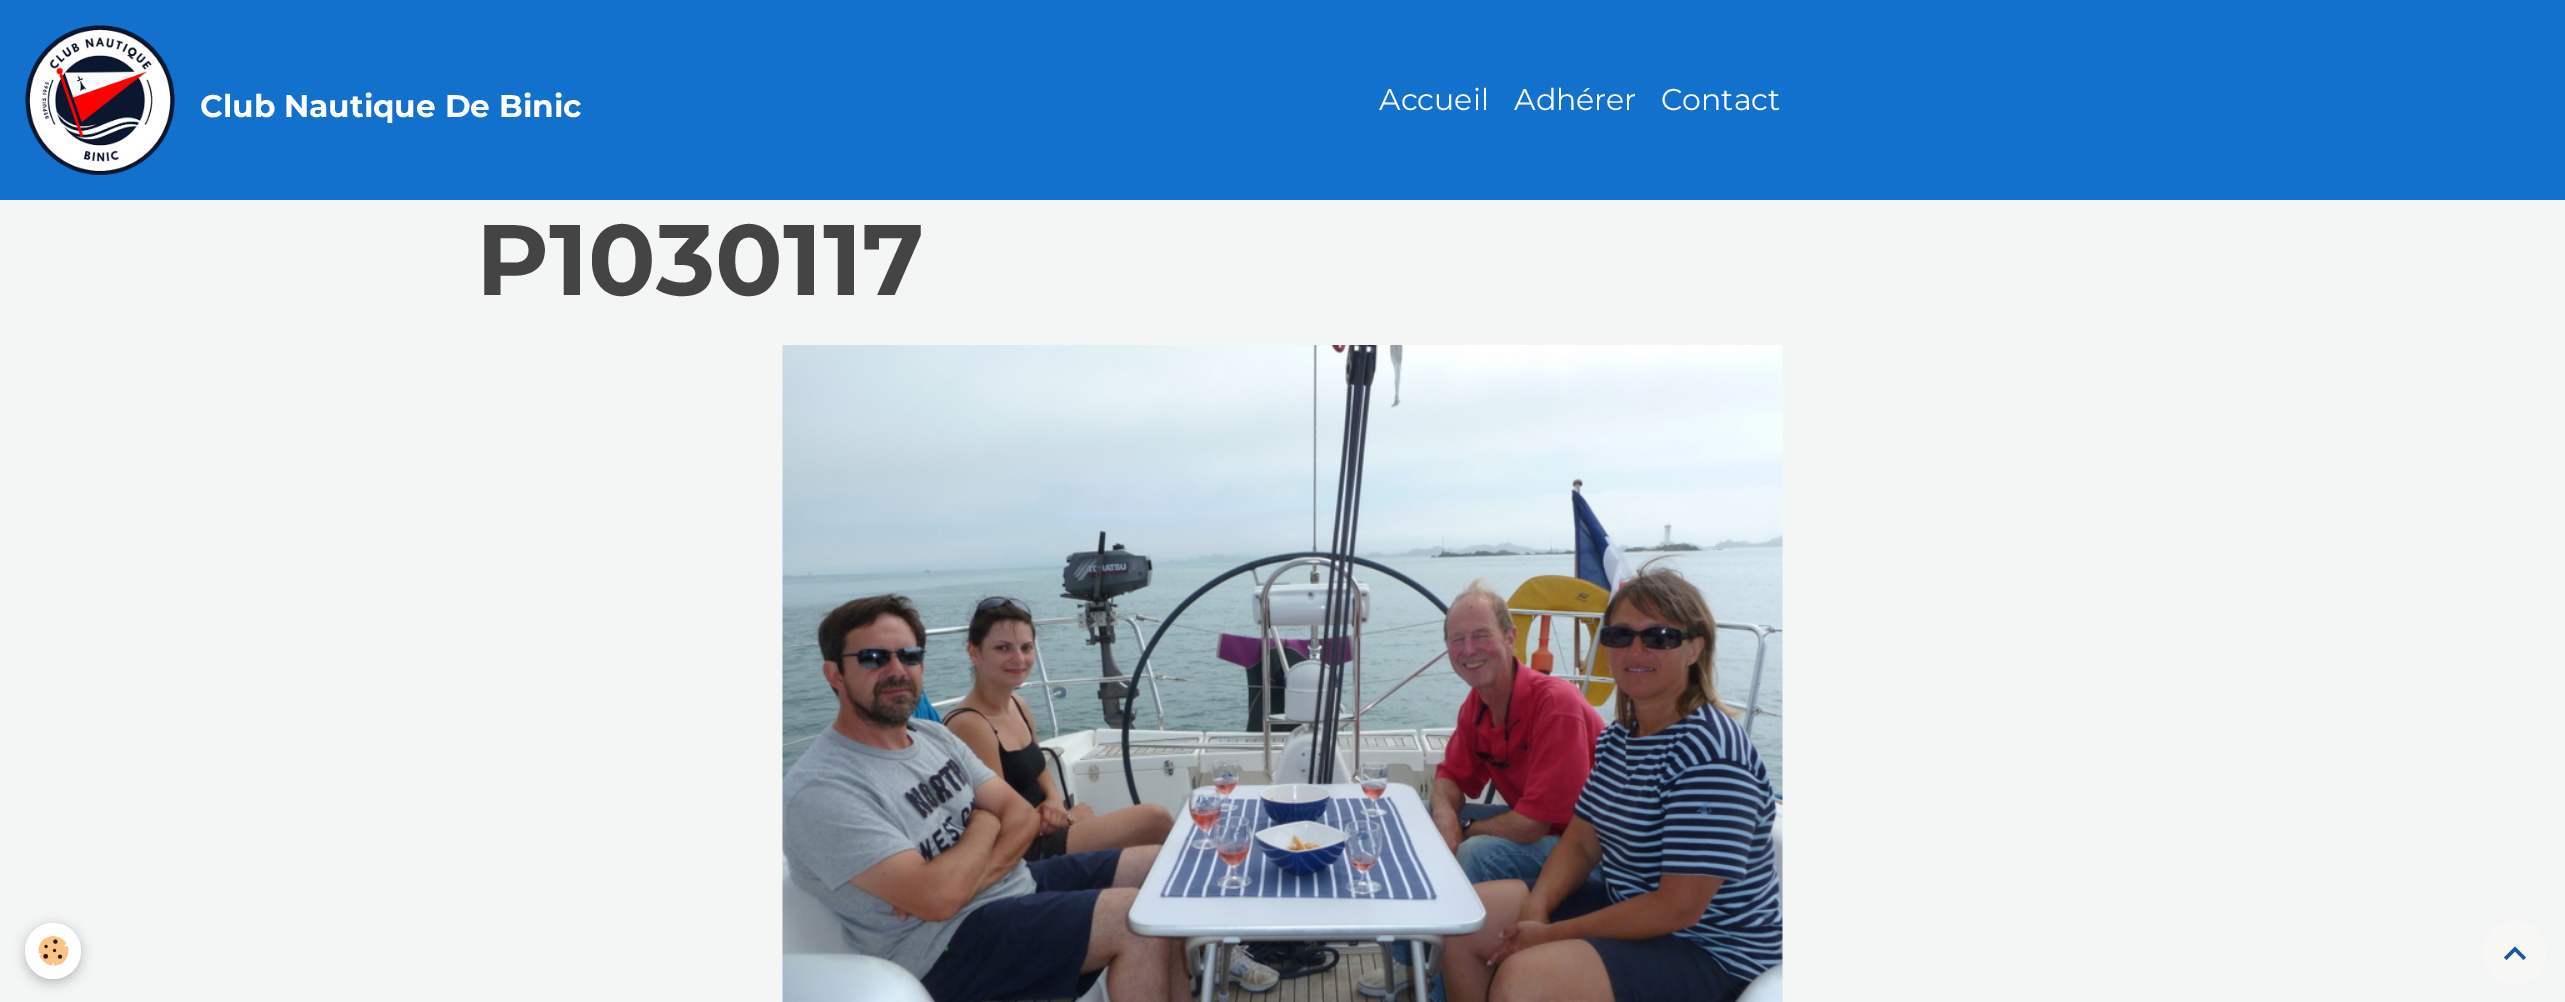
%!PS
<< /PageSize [2565 1002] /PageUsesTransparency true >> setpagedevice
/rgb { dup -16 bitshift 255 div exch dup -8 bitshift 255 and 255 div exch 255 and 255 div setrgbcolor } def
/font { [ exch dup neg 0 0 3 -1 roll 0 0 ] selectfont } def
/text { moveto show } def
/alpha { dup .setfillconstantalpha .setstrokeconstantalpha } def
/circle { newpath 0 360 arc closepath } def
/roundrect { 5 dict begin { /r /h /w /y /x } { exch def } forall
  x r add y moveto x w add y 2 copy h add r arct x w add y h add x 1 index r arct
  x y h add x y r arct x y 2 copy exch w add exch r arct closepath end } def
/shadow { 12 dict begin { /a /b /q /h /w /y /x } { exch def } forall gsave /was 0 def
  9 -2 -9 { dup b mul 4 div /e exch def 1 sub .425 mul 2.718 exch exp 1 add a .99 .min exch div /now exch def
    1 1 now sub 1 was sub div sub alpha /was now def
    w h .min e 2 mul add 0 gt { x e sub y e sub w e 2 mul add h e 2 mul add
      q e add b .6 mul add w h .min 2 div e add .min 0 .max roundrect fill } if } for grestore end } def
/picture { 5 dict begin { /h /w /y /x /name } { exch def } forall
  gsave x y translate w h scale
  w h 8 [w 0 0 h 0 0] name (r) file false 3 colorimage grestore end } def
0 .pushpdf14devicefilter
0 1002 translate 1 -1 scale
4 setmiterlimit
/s1 { /Montserrat-Bold 31.25 font 16#FFFFFF rgb } def
/s2 { /Montserrat-Regular 30 font 16#FFFFFF rgb } def
/s3 { /Montserrat-Bold 100 font 16#444444 rgb } def
16#F3F6F4 rgb
0 0 2565 1002 rectfill
16#1171CD rgb
0 0 2565 200 rectfill
(pic1.raw) 25 25 150 150 picture
s1
(Club Nautique De Binic) 200 117 text
s2
(Accueil) 1379 110 text
(Adhérer) 1514 110 text
(Contact) 1661 110 text
s3
(P1030117) 476 295 text
(pic2.raw) 782 345 1001 657 picture
16#000000 rgb
25 926 56 57 28 6 0.24 shadow
16#FFFFFF rgb
53 951 28 circle fill
(pic3.raw) 38 936 31 30 picture
16#F7F8F6 rgb
2484 921 62 63 31 roundrect fill
16#195894 rgb
2515 946.5 moveto 2526 957.5 lineto 2523.5 960 lineto 2515 951.5 lineto 2506.5 960 lineto 2504 957.5 lineto closepath fill
.poppdf14devicefilter showpage
